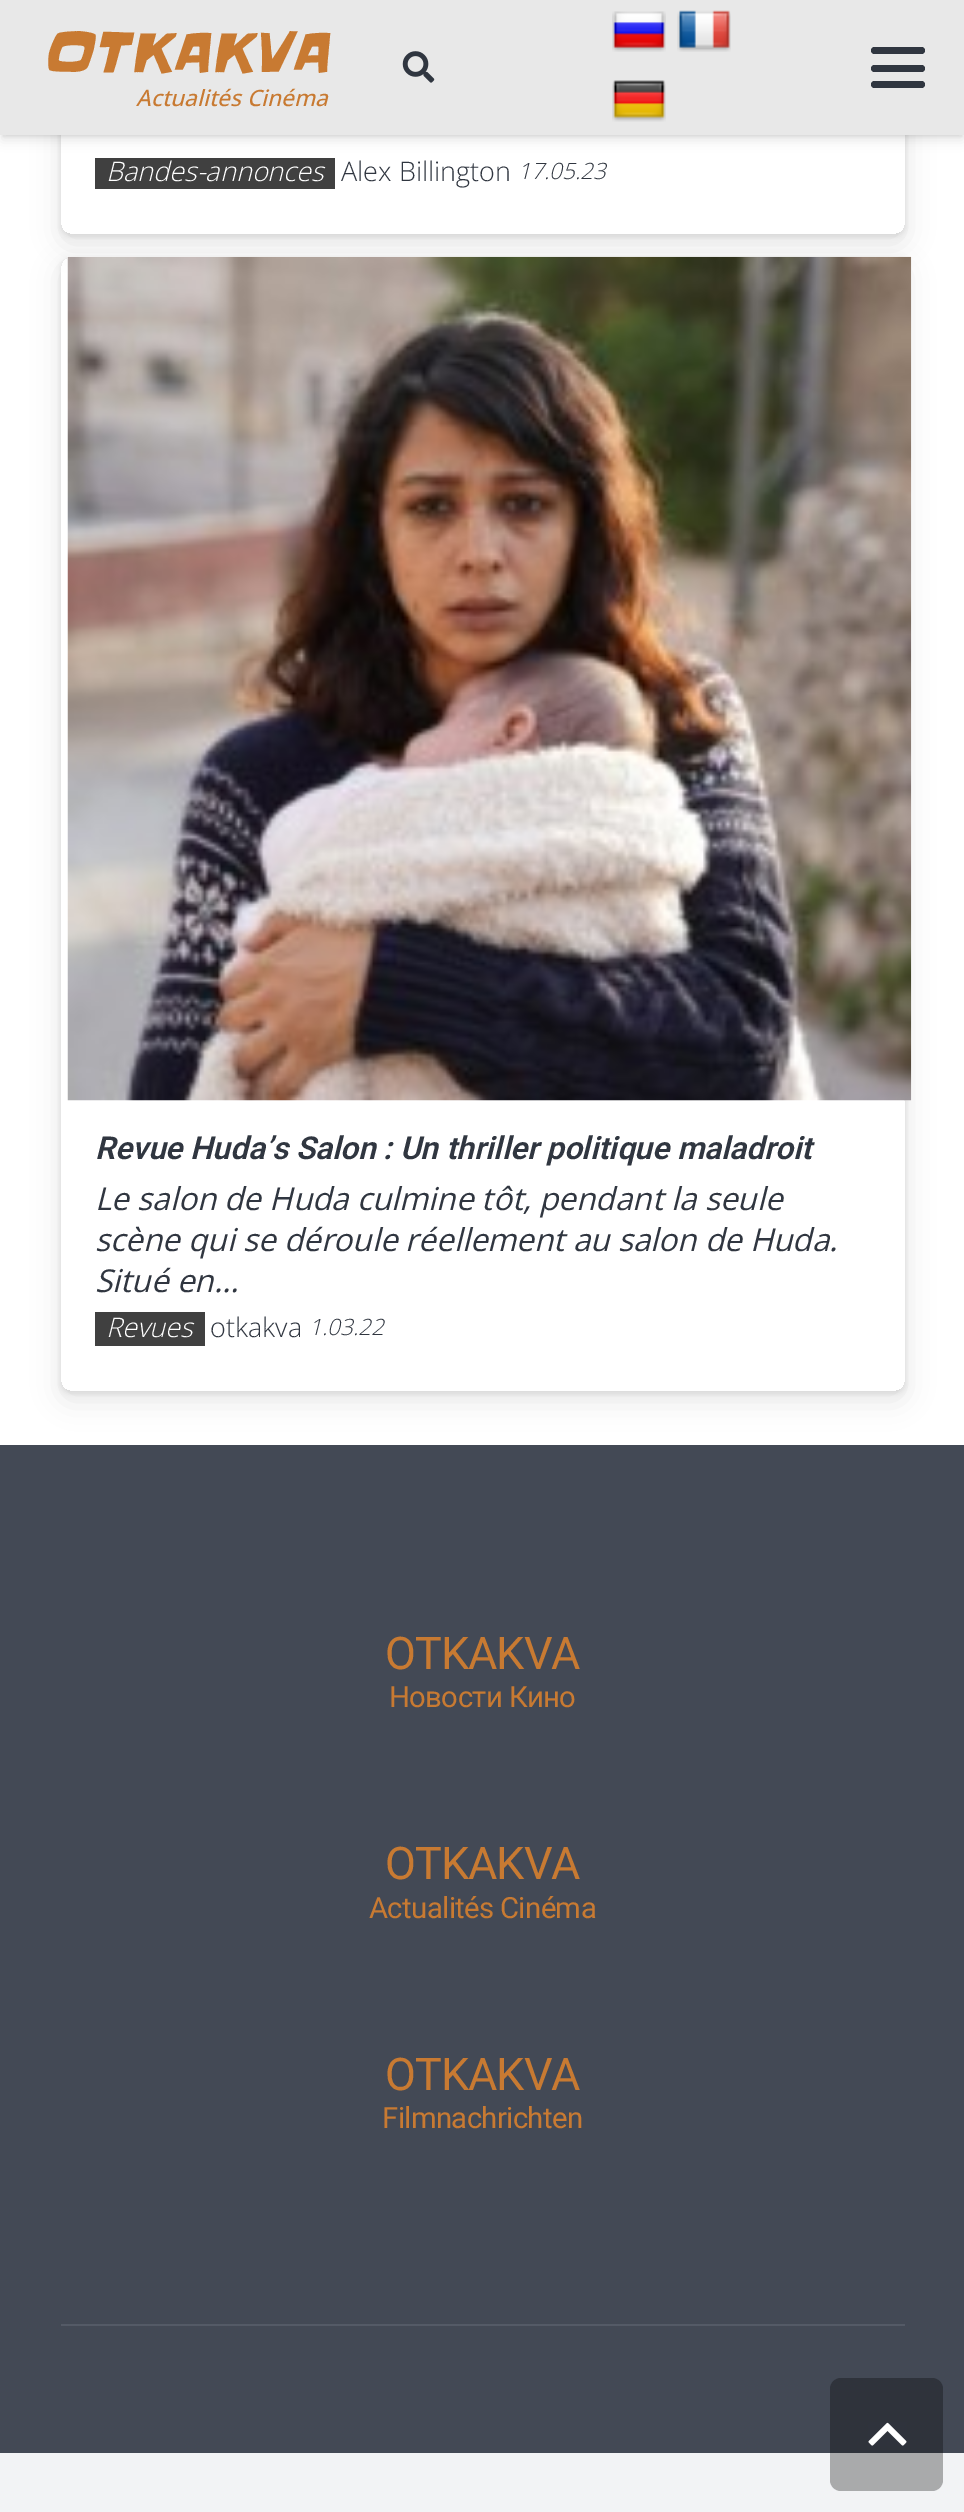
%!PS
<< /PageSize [964 2512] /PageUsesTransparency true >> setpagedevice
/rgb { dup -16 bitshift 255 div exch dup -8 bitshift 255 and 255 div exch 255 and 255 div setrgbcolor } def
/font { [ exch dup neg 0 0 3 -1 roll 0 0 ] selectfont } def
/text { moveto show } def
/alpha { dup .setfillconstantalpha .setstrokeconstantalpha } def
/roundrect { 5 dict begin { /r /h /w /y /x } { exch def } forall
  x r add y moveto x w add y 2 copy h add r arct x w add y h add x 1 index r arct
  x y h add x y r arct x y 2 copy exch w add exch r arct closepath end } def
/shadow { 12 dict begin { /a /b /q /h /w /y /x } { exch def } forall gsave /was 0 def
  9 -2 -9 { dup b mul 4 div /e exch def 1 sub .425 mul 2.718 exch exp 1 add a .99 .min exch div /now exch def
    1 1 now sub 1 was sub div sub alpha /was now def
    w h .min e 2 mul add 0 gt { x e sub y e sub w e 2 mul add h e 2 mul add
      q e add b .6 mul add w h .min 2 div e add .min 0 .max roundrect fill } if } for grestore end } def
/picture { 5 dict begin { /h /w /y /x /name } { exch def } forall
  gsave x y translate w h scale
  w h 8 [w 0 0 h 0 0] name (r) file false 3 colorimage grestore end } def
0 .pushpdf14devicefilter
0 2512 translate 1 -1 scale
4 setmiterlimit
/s1 { /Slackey-Italic 54 font 16#C87A32 rgb } def
/s2 { /OpenSans-MediumItalic 22.5 font 16#C87A32 rgb } def
/s3 { /OpenSans-LightItalic 27 font 16#FFFFFF rgb } def
/s4 { /OpenSans-Light 27 font 16#303640 rgb } def
/s5 { /OpenSans-LightItalic 22.5 font 16#303640 rgb } def
/s6 { /Roboto-SemiBoldItalic 31.5 font 16#303640 rgb } def
/s7 { /OpenSans-Italic 31.5 font 16#303640 rgb } def
16#F2F3F5 rgb
0 0 964 2512 rectfill
16#FFFFFF rgb
0 135 964 1310 rectfill
16#000000 rgb
2 7 961 130 0 1 0.05 shadow
2 9 961 131 0 5.5 0.1 shadow
gsave
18 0 moveto 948 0 lineto 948 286 lineto 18 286 lineto closepath 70 -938 moveto 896 -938 lineto 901 -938 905 -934 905 -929 curveto 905 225 lineto 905 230 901 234 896 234 curveto 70 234 lineto 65 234 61 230 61 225 curveto 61 -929 lineto 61 -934 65 -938 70 -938 curveto closepath eoclip newpath
61 -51 844 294 9 14 0.1 shadow
grestore
gsave
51 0 moveto 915 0 lineto 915 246 lineto 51 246 lineto closepath 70 -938 moveto 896 -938 lineto 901 -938 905 -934 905 -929 curveto 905 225 lineto 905 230 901 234 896 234 curveto 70 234 lineto 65 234 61 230 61 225 curveto 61 -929 lineto 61 -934 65 -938 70 -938 curveto closepath eoclip newpath
61 -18 844 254 9 3 0.1 shadow
grestore
16#E8E8E8 rgb
0 0 964 135 rectfill
s1
(OTKAKVA) 41 72 text
s2
(Actualités Cinéma) 136 106 text
(pic1.raw) 402 51 33 32 picture
(pic2.raw) 612 11 54 41 picture
(pic3.raw) 677 10 54 42 picture
(pic4.raw) 612 80 54 42 picture
16#303640 rgb
871 65 54 7 3.5 roundrect fill
871 47 54 7 3.5 roundrect fill
871 81 54 7 3.5 roundrect fill
16#404040 rgb
95 158 240 31 rectfill
s3
(Bandes-annonces) 106 181 text
s4
(Alex Billington) 341 181 text
s5
(17.05.23) 518 179 text
gsave
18 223 moveto 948 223 lineto 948 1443 lineto 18 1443 lineto closepath 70 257 moveto 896 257 lineto 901 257 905 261 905 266 curveto 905 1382 lineto 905 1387 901 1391 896 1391 curveto 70 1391 lineto 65 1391 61 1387 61 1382 curveto 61 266 lineto 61 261 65 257 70 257 curveto closepath eoclip newpath
16#000000 rgb
61 266 844 1134 9 14 0.1 shadow
grestore
gsave
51 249 moveto 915 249 lineto 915 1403 lineto 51 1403 lineto closepath 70 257 moveto 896 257 lineto 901 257 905 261 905 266 curveto 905 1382 lineto 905 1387 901 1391 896 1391 curveto 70 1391 lineto 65 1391 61 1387 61 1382 curveto 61 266 lineto 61 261 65 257 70 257 curveto closepath eoclip newpath
16#000000 rgb
61 259 844 1134 9 3 0.1 shadow
grestore
(pic5.raw) 67 256 845 845 picture
s6
(Revue Huda’s Salon : Un thriller politique maladroit) 95 1159 text
s7
(Le salon de Huda culmine tôt, pendant la seule) 95 1210 text
(scène qui se déroule réellement au salon de Huda.) 95 1251 text
(Situé en…) 95 1292 text
16#404040 rgb
95 1312 110 34 rectfill
s3
(Revues) 106 1337 text
s4
(otkakva) 210 1337 text
s5
(1.03.22) 309 1335 text
16#434955 rgb
0 1445 964 1008 rectfill
/Roboto-Regular 45 font
16#C87A32 rgb
385 1669 moveto -1 0 (OTKAKVA) ashow
/Roboto-Regular 29.25 font
389 1707 moveto -0.6 0 (Новости Кино) ashow
/Roboto-Regular 45 font
385 1879 moveto -1 0 (OTKAKVA) ashow
/Roboto-Regular 29.25 font
369 1918 moveto -0.6 0 (Actualités Cinéma) ashow
/Roboto-Regular 45 font
385 2090 moveto -1 0 (OTKAKVA) ashow
/Roboto-Regular 29.25 font
382 2128 moveto -0.6 0 (Filmnachrichten) ashow
16#545A66 rgb
61 2324 844 2 rectfill
0.3 alpha
16#000000 rgb
830 2378 113 113 11 roundrect fill
1 alpha
(pic6.raw) 868 2422 39 24 picture
.poppdf14devicefilter showpage
